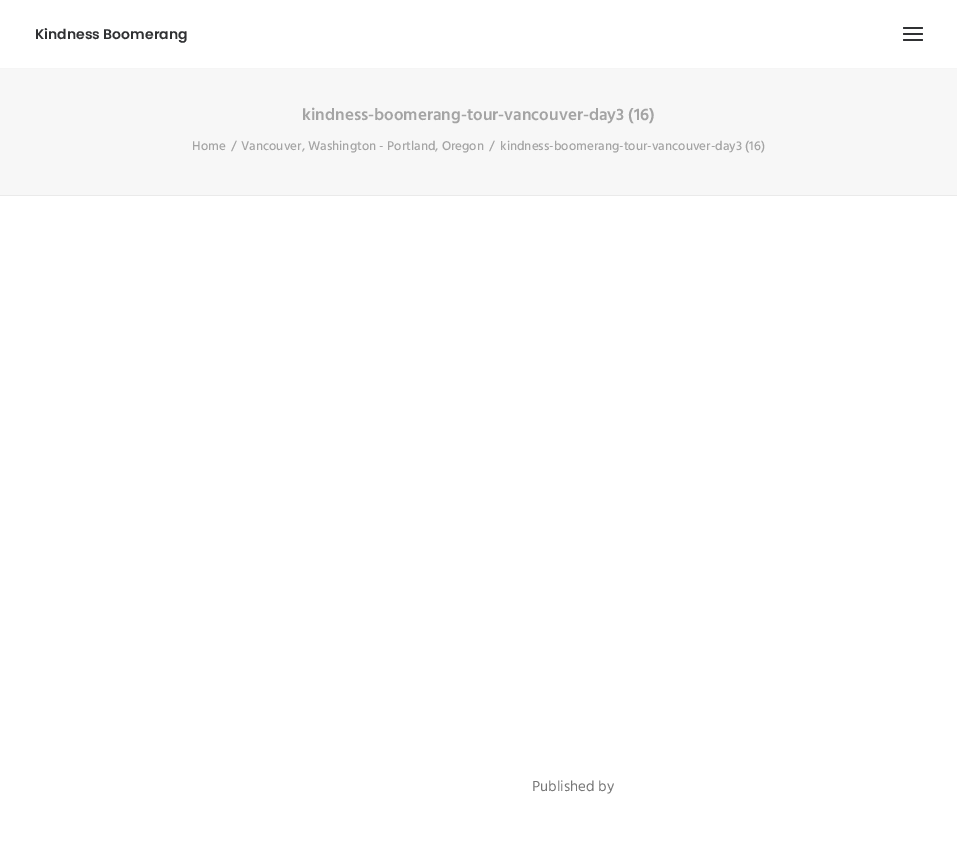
%!PS
<< /PageSize [957 858] >> setpagedevice
/rgb { dup -16 bitshift 255 div exch dup -8 bitshift 255 and 255 div exch 255 and 255 div setrgbcolor } def
/font { [ exch dup neg 0 0 3 -1 roll 0 0 ] selectfont } def
/text { moveto show } def
/roundrect { 5 dict begin { /r /h /w /y /x } { exch def } forall
  x r add y moveto x w add y 2 copy h add r arct x w add y h add x 1 index r arct
  x y h add x y r arct x y 2 copy exch w add exch r arct closepath end } def
0 858 translate 1 -1 scale
4 setmiterlimit
/s1 { /Poppins-SemiBold 14 font 16#303133 rgb } def
/s2 { /Hind-SemiBold 17 font 16#A4A4A4 rgb } def
/s3 { /Hind-Medium 13 font 16#A4A4A4 rgb } def
/s4 { /Hind-Regular 15 font 16#777777 rgb } def
16#FFFFFF rgb
0 0 957 858 rectfill
16#F5F5F5 rgb
0 68 957 1 rectfill
s1
(Kindness Boomerang) 35 39 text
903 33 20 2 1 roundrect fill
903 27 20 2 1 roundrect fill
903 39 20 2 1 roundrect fill
16#F7F7F7 rgb
0 69 957 126 rectfill
16#EAEAEA rgb
0 195 957 1 rectfill
s2
(kindness-boomerang-tour-vancouver-day3 \(16\)) 302 120 text
s3
(Home) 192 150 text
(/) 231 150 text
(Vancouver, Washington - Portland, Oregon) 241 150 text
(/) 489 150 text
(kindness-boomerang-tour-vancouver-day3 \(16\)) 500 150 text
s4
(Published by) 532 791 text
showpage
